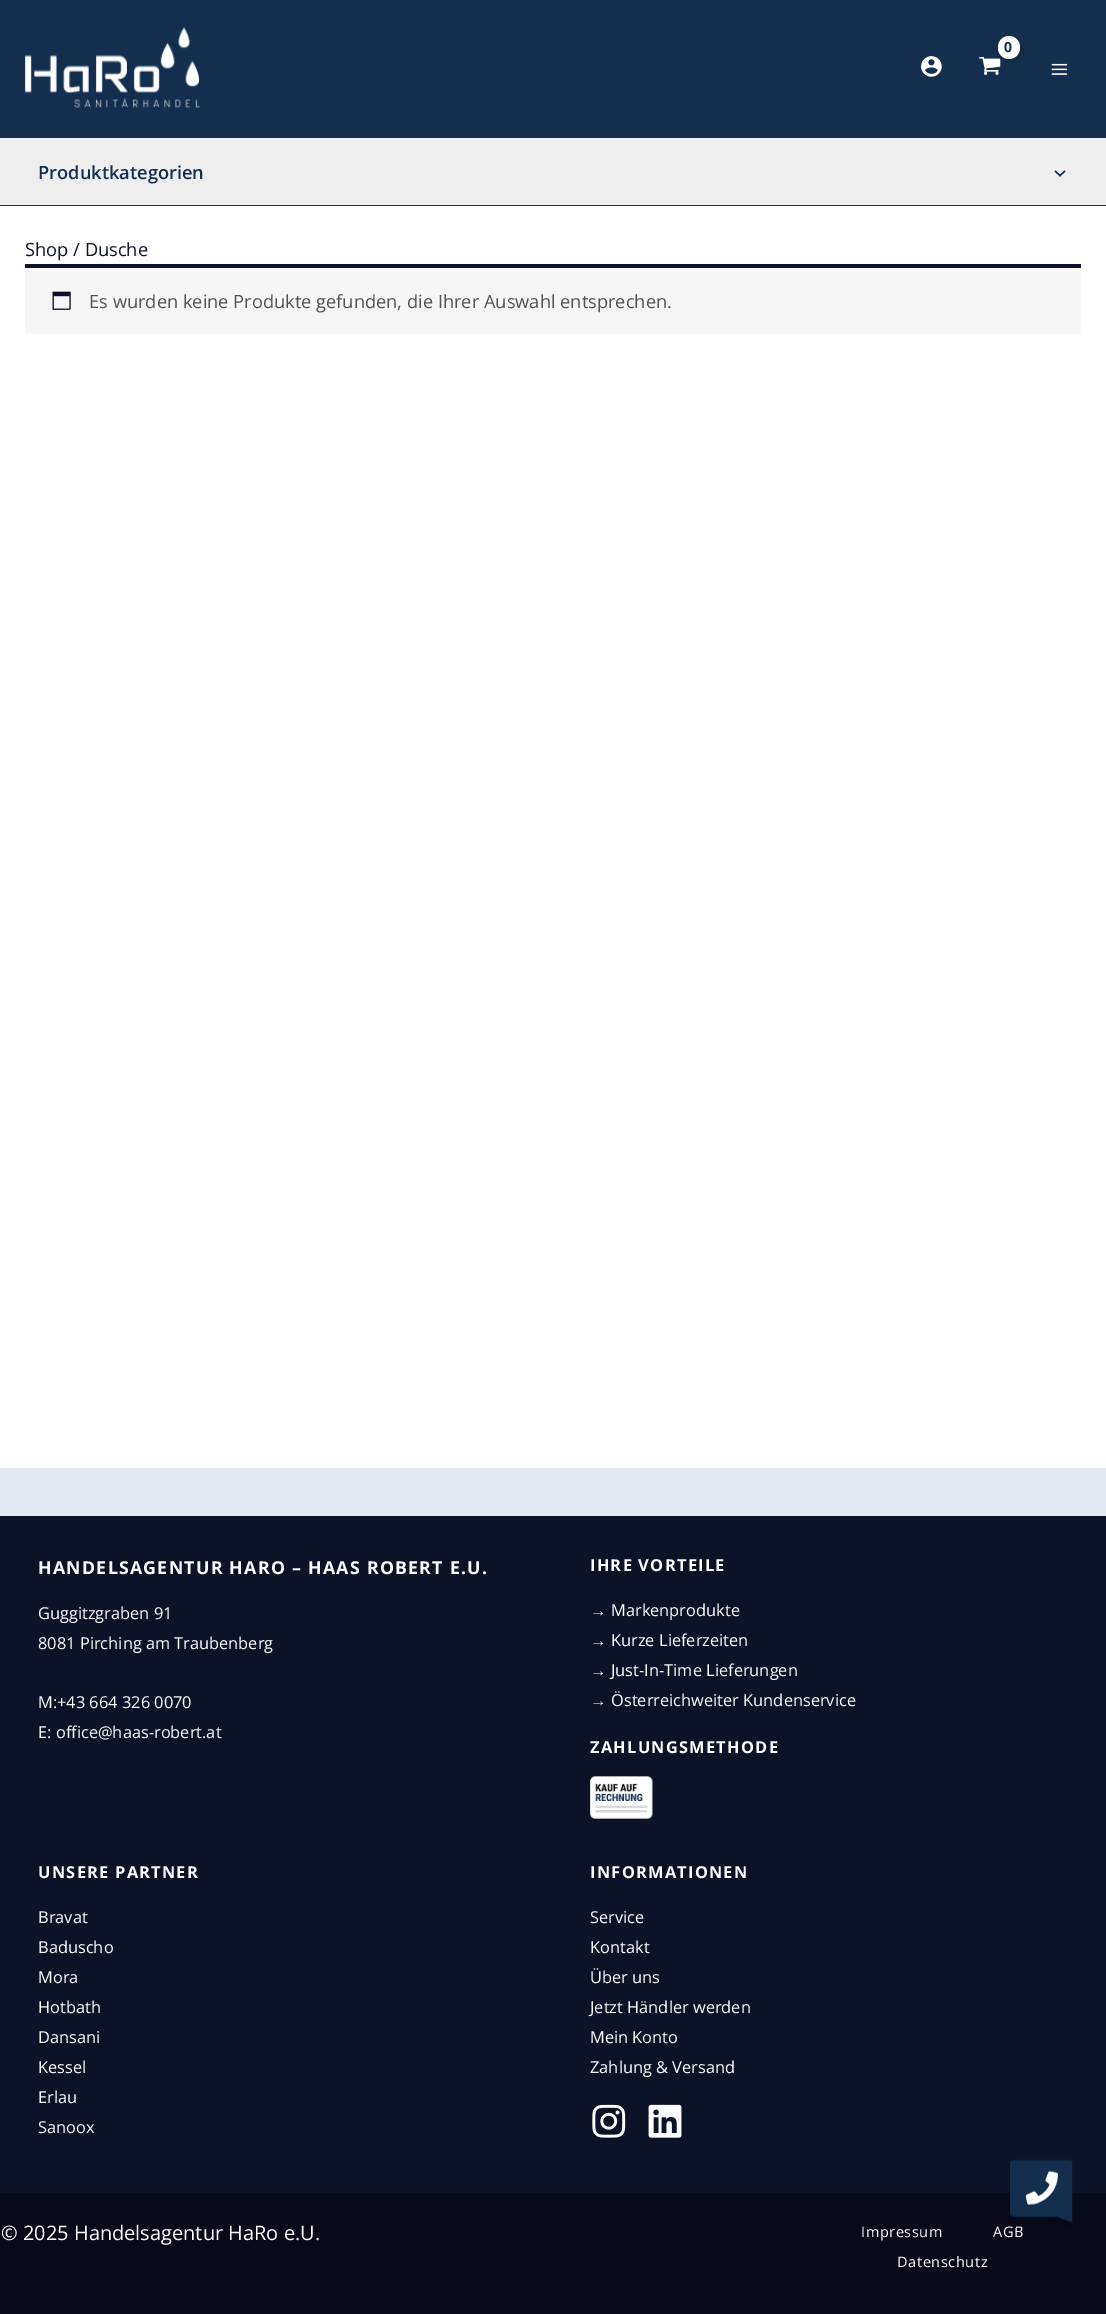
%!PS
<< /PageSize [1106 2314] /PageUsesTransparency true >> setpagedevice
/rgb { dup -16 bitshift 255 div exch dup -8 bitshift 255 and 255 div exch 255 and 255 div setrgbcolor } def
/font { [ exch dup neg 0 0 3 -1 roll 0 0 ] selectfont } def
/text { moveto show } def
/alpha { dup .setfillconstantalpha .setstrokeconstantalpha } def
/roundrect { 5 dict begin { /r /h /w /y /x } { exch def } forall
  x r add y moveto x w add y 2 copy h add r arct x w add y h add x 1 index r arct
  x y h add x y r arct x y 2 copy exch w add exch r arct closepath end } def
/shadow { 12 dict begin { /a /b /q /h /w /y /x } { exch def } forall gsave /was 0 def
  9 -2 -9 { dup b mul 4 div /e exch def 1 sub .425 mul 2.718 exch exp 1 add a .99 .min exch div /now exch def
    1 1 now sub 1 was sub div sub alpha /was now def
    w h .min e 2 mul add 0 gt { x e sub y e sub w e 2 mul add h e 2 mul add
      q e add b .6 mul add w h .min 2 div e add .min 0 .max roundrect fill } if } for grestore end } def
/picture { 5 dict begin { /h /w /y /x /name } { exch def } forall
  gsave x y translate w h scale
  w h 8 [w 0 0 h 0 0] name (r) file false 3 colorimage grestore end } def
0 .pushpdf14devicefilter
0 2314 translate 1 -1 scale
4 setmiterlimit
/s1 { /OpenSans-SemiBold 18.25 font 16#132E4F rgb } def
/s2 { /OpenSans-Regular 18.25 font 16#0C1327 rgb } def
/s3 { /OpenSans-Regular 18.25 font 16#515151 rgb } def
/s4 { /OpenSans-Regular 16.4 font 16#FFFFFF rgb } def
/s5 { /LiberationSans-Regular 16.4 font 16#FFFFFF rgb } def
/s6 { /OpenSans-Regular 20 font 16#FFFFFF rgb } def
16#FFFFFF rgb
0 0 1106 2314 rectfill
16#132E4F rgb
0 0 1106 138 rectfill
(pic1.raw) 25 27 175 82 picture
(pic2.raw) 979 57 22 18 picture
16#000000 rgb
999 38 22 22 11 2 0.3 shadow
16#FFFFFF rgb
998 36 22 23 11 roundrect fill
/OpenSans-Bold 14 font
16#132E4F rgb
1004 52 moveto -1 0 (0) ashow
(pic3.raw) 921 56 21 21 picture
(pic4.raw) 1051 63 17 12 picture
16#EEEEEE rgb
0 138 1106 67 rectfill
16#132E4F rgb
0 205 1106 1 rectfill
s1
(Produktkategorien) 38 179 text
1064.5 170.5 moveto 1065.5 171.5 lineto 1060 176.5 lineto 1059 175.5 lineto closepath fill
1055.5 170.5 moveto 1061 175.5 lineto 1060 176.5 lineto 1054.5 171.5 lineto closepath fill
s2
(Shop / Dusche) 25 256 text
16#F7F6F7 rgb
25 268 1056 66 rectfill
16#0C1327 rgb
25 264 1056 4 rectfill
(pic5.raw) 52 291 19 19 picture
s3
(Es wurden keine Produkte gefunden, die Ihrer Auswahl entsprechen.) 89 308 text
16#0C1327 rgb
0 1516 1106 677 rectfill
16#E2E8F0 rgb
0 1468 1106 48 rectfill
/OpenSans-Bold 17.75 font
16#FFFFFF rgb
38 1574 moveto 1.25 0 (HANDELSAGENTUR HARO – HAAS ROBERT E.U.) ashow
s4
(Guggitzgraben 91) 38 1619 text
(8081 Pirching am Traubenberg) 38 1649 text
(M:+43 664 326 0070) 38 1708 text
(E: office@haas-robert.at) 38 1738 text
/OpenSans-Bold 16.4 font
590 1571 moveto 1.25 0 (IHRE VORTEILE) ashow
s5
(→) 590 1616 text
s4
(Markenprodukte) 611 1616 text
s5
(→) 590 1646 text
s4
(Kurze Lieferzeiten) 611 1646 text
s5
(→) 590 1676 text
s4
(Just-In-Time Lieferungen) 611 1676 text
s5
(→) 590 1706 text
s4
(Österreichweiter Kundenservice) 611 1706 text
/OpenSans-Bold 16.4 font
590 1753 moveto 1.25 0 (ZAHLUNGSMETHODE) ashow
(pic6.raw) 590 1776 63 43 picture
38 1878 moveto 1.25 0 (UNSERE PARTNER) ashow
s4
(Bravat) 38 1923 text
(Baduscho) 38 1953 text
(Mora) 38 1983 text
(Hotbath) 38 2013 text
(Dansani) 38 2043 text
(Kessel) 38 2073 text
(Erlau) 38 2103 text
(Sanoox) 38 2133 text
/OpenSans-Bold 16.4 font
590 1878 moveto 1.25 0 (INFORMATIONEN) ashow
s4
(Service) 590 1923 text
(Kontakt) 590 1953 text
(Über uns) 590 1983 text
(Jetzt Händler werden) 590 2013 text
(Mein Konto) 590 2043 text
(Zahlung & Versand) 590 2073 text
16#080A1A rgb
0 2193 1106 121 rectfill
/OpenSans-Regular 14.5 font
16#FFFFFF rgb
993 2237 moveto 0.6 0 (AGB) ashow
(pic7.raw) 1009 2159 64 69 picture
(pic8.raw) 592 2104 34 34 picture
(pic9.raw) 648 2104 34 34 picture
s6
(© 2025 Handelsagentur HaRo e.U.) 1 2240 text
/OpenSans-Regular 14.5 font
861 2237 moveto 0.6 0 (Impressum) ashow
897 2267 moveto 0.6 0 (Datenschutz) ashow
.poppdf14devicefilter showpage
